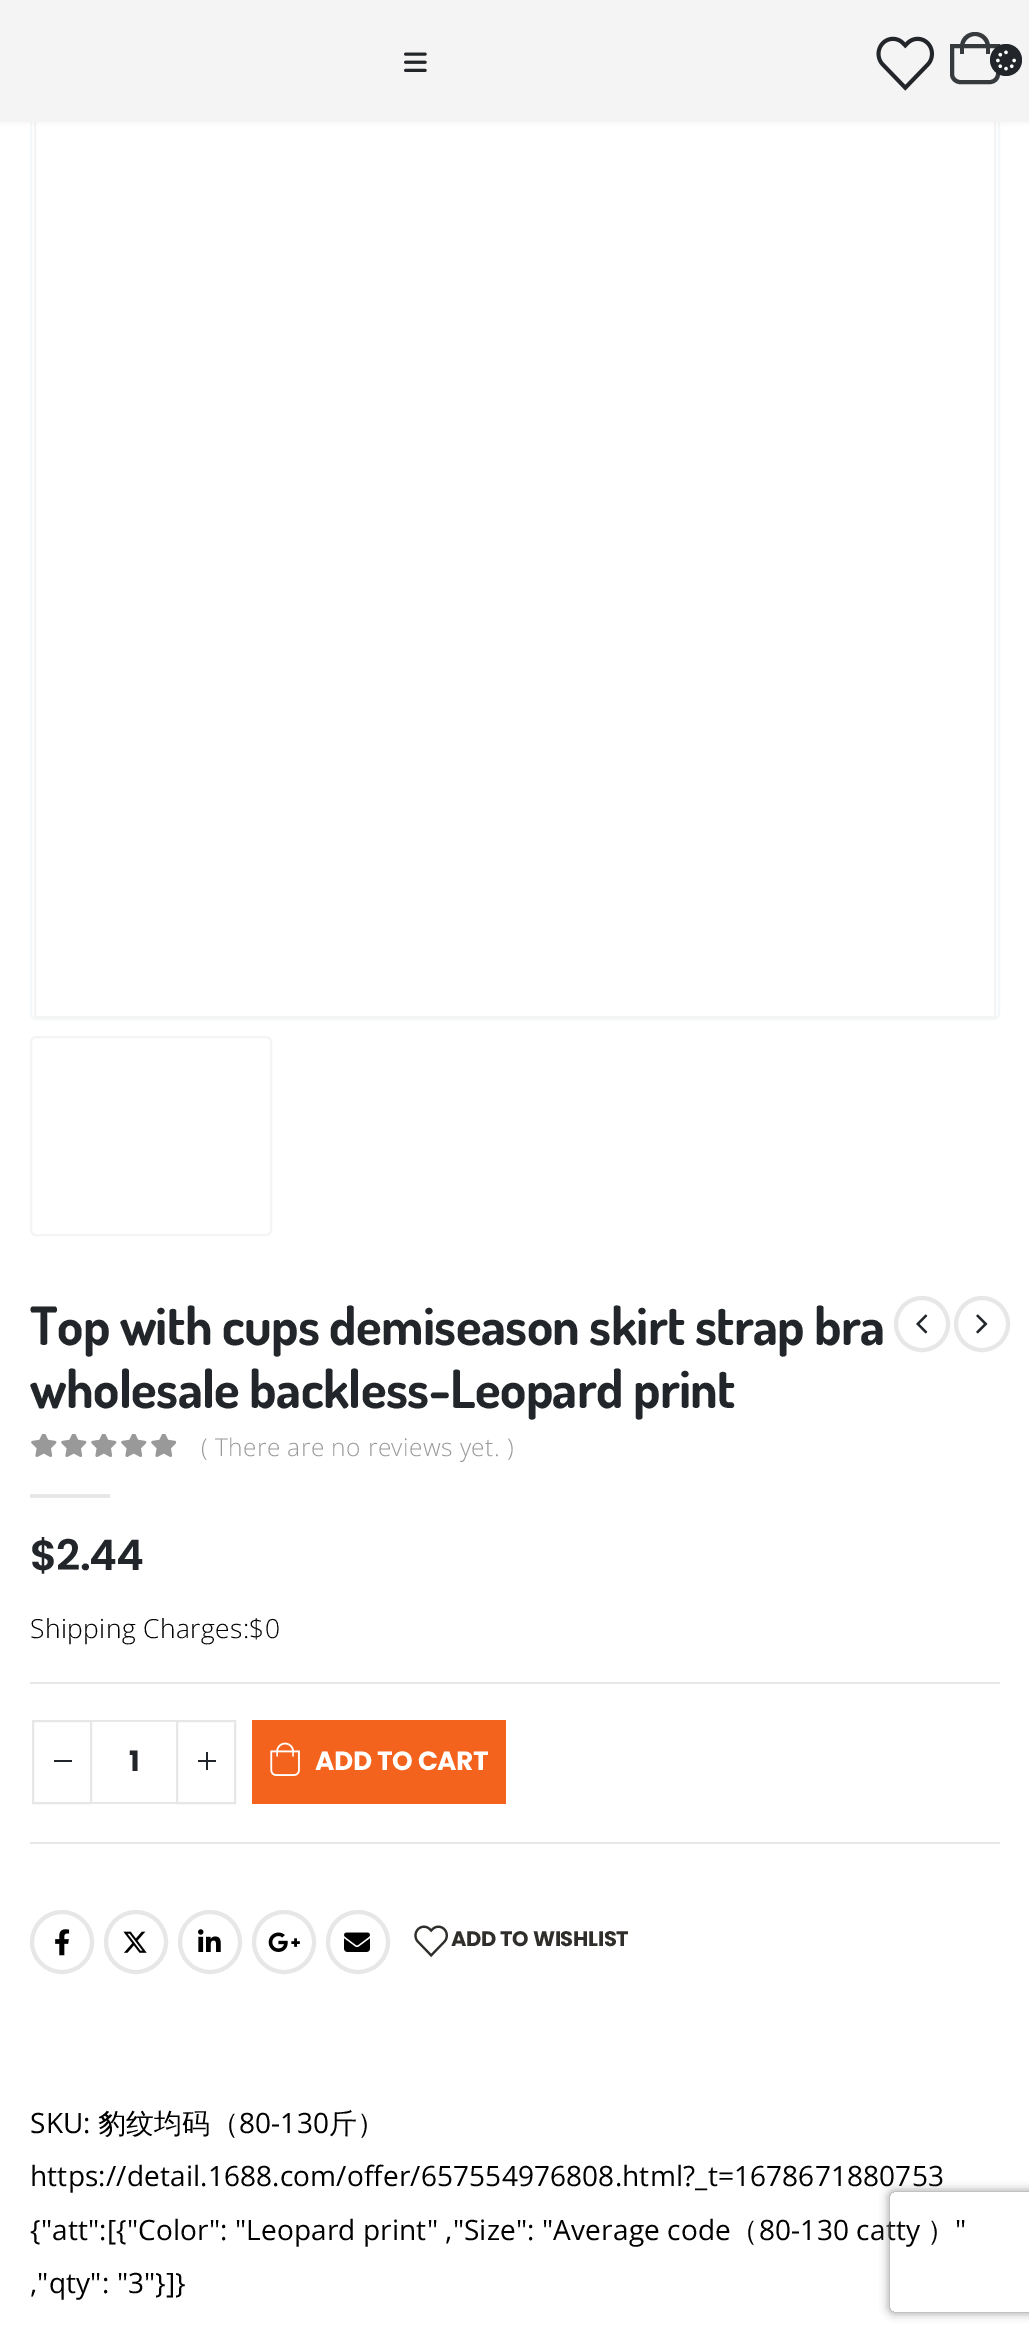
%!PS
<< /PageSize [1029 2340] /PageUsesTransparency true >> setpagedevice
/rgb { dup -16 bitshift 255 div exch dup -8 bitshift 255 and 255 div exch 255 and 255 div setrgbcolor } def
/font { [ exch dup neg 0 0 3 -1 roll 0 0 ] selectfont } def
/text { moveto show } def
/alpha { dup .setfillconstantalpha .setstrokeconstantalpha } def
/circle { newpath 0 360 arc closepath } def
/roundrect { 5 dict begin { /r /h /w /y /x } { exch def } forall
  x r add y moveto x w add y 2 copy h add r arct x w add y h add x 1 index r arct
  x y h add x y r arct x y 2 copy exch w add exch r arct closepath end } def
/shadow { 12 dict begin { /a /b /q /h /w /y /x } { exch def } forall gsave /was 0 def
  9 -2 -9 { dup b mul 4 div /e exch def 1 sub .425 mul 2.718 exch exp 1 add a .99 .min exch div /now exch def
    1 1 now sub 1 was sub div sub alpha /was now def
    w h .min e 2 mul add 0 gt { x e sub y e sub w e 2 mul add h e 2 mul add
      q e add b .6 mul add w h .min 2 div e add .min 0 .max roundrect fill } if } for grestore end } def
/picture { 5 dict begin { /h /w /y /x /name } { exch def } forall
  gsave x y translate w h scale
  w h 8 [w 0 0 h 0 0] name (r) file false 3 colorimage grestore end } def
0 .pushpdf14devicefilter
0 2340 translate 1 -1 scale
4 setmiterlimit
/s1 { /Poppins-Bold 28 font 16#222529 rgb } def
16#FFFFFF rgb
0 0 1029 2340 rectfill
16#F4F7F9 rgb
2 setlinewidth
31 55 968 964 5 roundrect stroke
16#F4F4F4 rgb
35 57 960 960 rectstroke
16#000000 rgb
0 0 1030 122 0 3 0.06 shadow
16#F4F4F4 rgb
0 0 1029 122 rectfill
(pic1.raw) 404 52 23 20 picture
(pic2.raw) 876 36 59 55 picture
16#373A3D rgb
4 setlinewidth
952 46 moveto 998 46 lineto 998 74 lineto 998 78.5 994.5 82 990 82 curveto 960 82 lineto 955.5 82 952 78.5 952 74 curveto closepath stroke
975 32 moveto 983.5 32 990 38.5 990 47 curveto 990 54 lineto 960 54 lineto 960 47 lineto 960 38.5 966.5 32 975 32 curveto closepath 975 36 moveto 981 36 986 41 986 47 curveto 986 54 lineto 964 54 lineto 964 47 lineto 964 41 969 36 975 36 curveto closepath eofill
16#222529 rgb
1006 60 16 circle fill
(pic3.raw) 996 50 20 21 picture
16#F4F4F4 rgb
2 setlinewidth
31 1037 240 198 5 roundrect stroke
/Dosis-Bold 52.75 font
16#222529 rgb
30 1345 moveto -0.55 0 (Top with cups demiseason skirt strap bra) ashow
30 1408 moveto -0.55 0 (wholesale backless-Leopard print) ashow
16#E7E7E7 rgb
4 setlinewidth
922 1324 26 circle stroke
(pic4.raw) 916 1314 12 20 picture
982 1324 26 circle stroke
(pic5.raw) 976 1314 12 20 picture
(pic6.raw) 31 1434 145 23 picture
/OpenSans-Light 24.5 font
16#999999 rgb
201 1456 moveto 0.4 0 (\( There are no reviews yet. \)) ashow
16#E7E7E7 rgb
30 1494 80 4 rectfill
/Poppins-SemiBold 42 font
16#222529 rgb
30 1570 moveto -1 0 ($2.44) ashow
/OpenSans-Light 26.4 font
16#000000 rgb
30 1638 moveto 0.4 0 (Shipping Charges:$0) ashow
16#E7E7E7 rgb
30 1682 970 2 rectfill
30 1842 970 2 rectfill
90 1720 88 2 rectfill
90 1802 88 2 rectfill
2 setlinewidth
33 1721 58 82 rectstroke
16#222529 rgb
54 1760 18 2 rectfill
s1
(1) 129 1771 text
16#E7E7E7 rgb
177 1721 58 82 rectstroke
16#222529 rgb
198 1760 18 2 rectfill
206 1752 2 18 rectfill
16#F4631D rgb
252 1720 254 84 rectfill
(pic7.raw) 270 1742 30 34 picture
/Poppins-Bold 26.4 font
16#FFFFFF rgb
315 1770 moveto -0.4 0 (ADD TO CART) ashow
16#E7E7E7 rgb
4 setlinewidth
62 1942 30 circle stroke
(pic8.raw) 55 1929 15 27 picture
136 1942 30 circle stroke
(pic9.raw) 123 1931 24 22 picture
210 1942 30 circle stroke
(pic10.raw) 198 1929 23 23 picture
284 1942 30 circle stroke
(pic11.raw) 268 1932 32 20 picture
358 1942 30 circle stroke
(pic12.raw) 344 1932 26 20 picture
(pic13.raw) 414 1925 34 32 picture
/Poppins-Bold 21 font
16#302E2A rgb
451 1946 moveto -0.3 0 (ADD TO WISHLIST) ashow
/OpenSans-Regular 28 font
16#000000 rgb
30 2133 moveto 0.15 0 (SKU:) ashow
/WenQuanYiZenHei-Medium 28 font
98 2133 moveto 0.15 0 (豹纹均码（) ashow
/OpenSans-Regular 28 font
239 2133 moveto 0.15 0 (80-130) ashow
/WenQuanYiZenHei-Medium 28 font
329 2133 moveto 0.15 0 (斤）) ashow
/OpenSans-Regular 28 font
30 2186 moveto 0.15 0 (https://detail.1688.com/offer/657554976808.html?_t=1678671880753) ashow
30 2240 moveto 0.15 0 ({"att":[{"Color": "Leopard print" ,"Size": "Average code) ashow
/WenQuanYiZenHei-Medium 28 font
730 2240 moveto 0.15 0 (（) ashow
/OpenSans-Regular 28 font
759 2240 moveto 0.15 0 (80-130 catty) ashow
/WenQuanYiZenHei-Medium 28 font
927 2240 moveto 0.15 0 (）) ashow
/OpenSans-Regular 28 font
955 2240 moveto 0.15 0 (") ashow
30 2293 moveto 0.15 0 (,"qty": "3"}]}) ashow
gsave
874 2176 moveto 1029 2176 lineto 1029 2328 lineto 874 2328 lineto closepath 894 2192 moveto 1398 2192 lineto 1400 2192 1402 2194 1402 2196 curveto 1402 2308 lineto 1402 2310 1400 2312 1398 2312 curveto 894 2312 lineto 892 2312 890 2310 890 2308 curveto 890 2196 lineto 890 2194 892 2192 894 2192 curveto closepath eoclip newpath
16#808080 rgb
890 2192 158 120 4 5 1 shadow
grestore
.poppdf14devicefilter showpage
